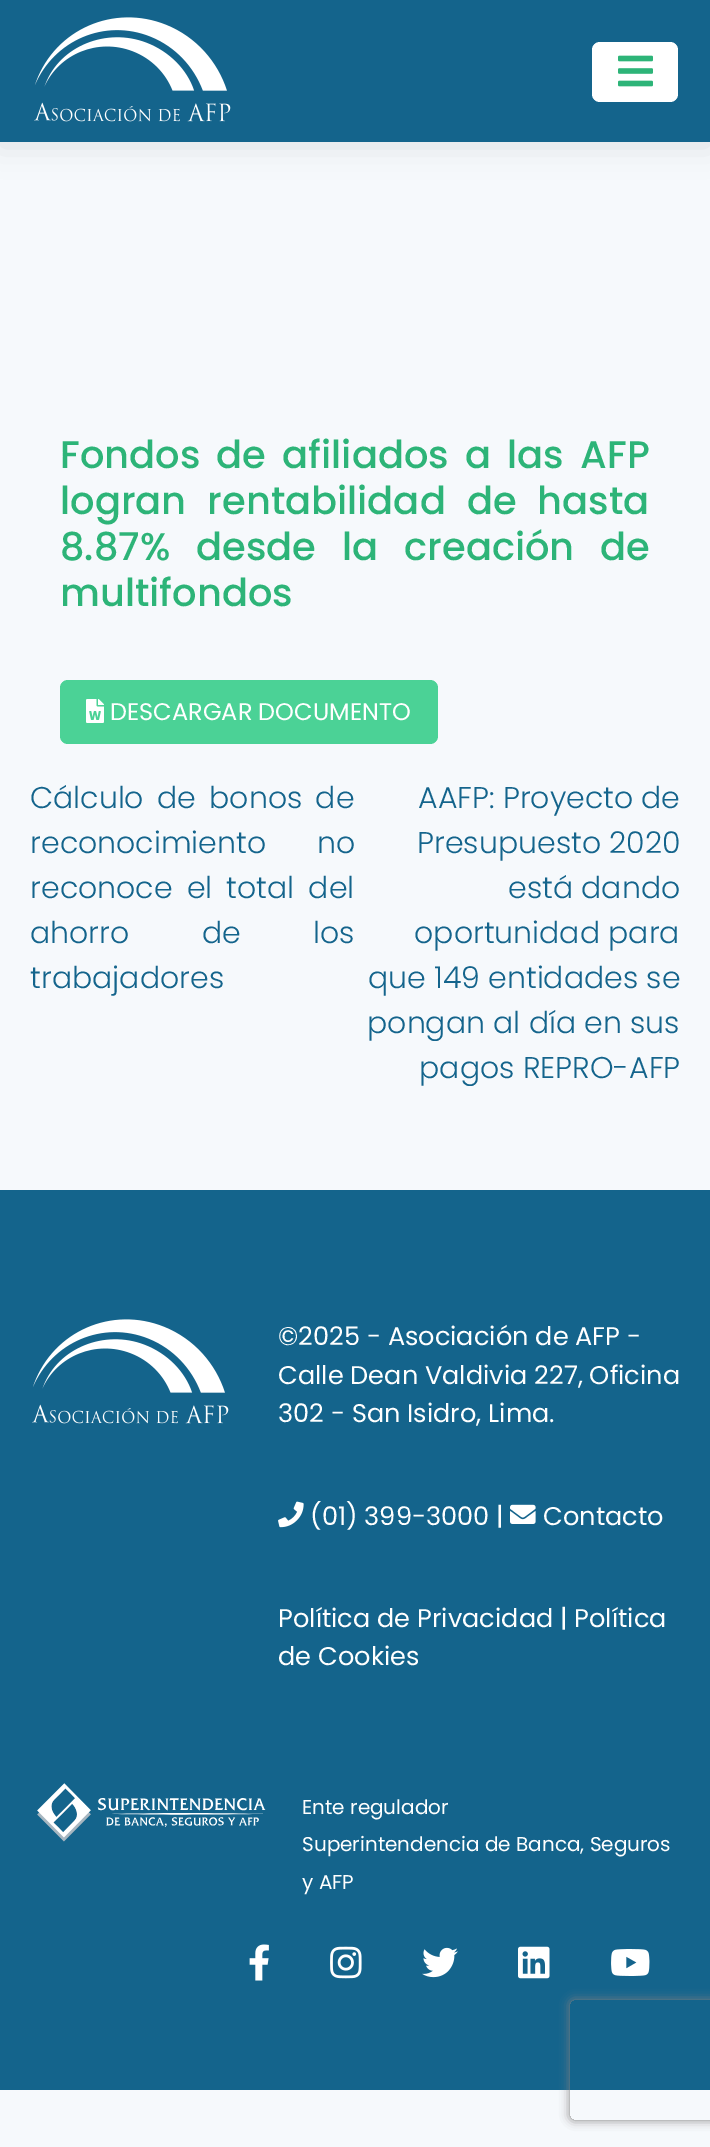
%!PS
<< /PageSize [710 2147] /PageUsesTransparency true >> setpagedevice
/rgb { dup -16 bitshift 255 div exch dup -8 bitshift 255 and 255 div exch 255 and 255 div setrgbcolor } def
/font { [ exch dup neg 0 0 3 -1 roll 0 0 ] selectfont } def
/text { moveto show } def
/alpha { dup .setfillconstantalpha .setstrokeconstantalpha } def
/roundrect { 5 dict begin { /r /h /w /y /x } { exch def } forall
  x r add y moveto x w add y 2 copy h add r arct x w add y h add x 1 index r arct
  x y h add x y r arct x y 2 copy exch w add exch r arct closepath end } def
/shadow { 12 dict begin { /a /b /q /h /w /y /x } { exch def } forall gsave /was 0 def
  9 -2 -9 { dup b mul 4 div /e exch def 1 sub .425 mul 2.718 exch exp 1 add a .99 .min exch div /now exch def
    1 1 now sub 1 was sub div sub alpha /was now def
    w h .min e 2 mul add 0 gt { x e sub y e sub w e 2 mul add h e 2 mul add
      q e add b .6 mul add w h .min 2 div e add .min 0 .max roundrect fill } if } for grestore end } def
/picture { 5 dict begin { /h /w /y /x /name } { exch def } forall
  gsave x y translate w h scale
  w h 8 [w 0 0 h 0 0] name (r) file false 3 colorimage grestore end } def
0 .pushpdf14devicefilter
0 2147 translate 1 -1 scale
4 setmiterlimit
/s1 { /Poppins-Medium 38.4 font 16#2DB478 rgb } def
/s2 { /Poppins-Regular 24 font 16#FFFFFF rgb } def
/s3 { /Poppins-Light 30 font 16#14648C rgb } def
/s4 { /Poppins-Regular 25.6 font 16#FFFFFF rgb } def
/s5 { /Poppins-Regular 20 font 16#FFFFFF rgb } def
16#F6F9FC rgb
0 0 710 2147 rectfill
16#000000 rgb
0 4 710 142 0 15 0.1 shadow
16#14648C rgb
0 0 710 142 rectfill
(pic1.raw) 34 17 197 105 picture
16#FFFFFF rgb
592 42 86 60 8 roundrect fill
(pic2.raw) 618 55 35 32 picture
/Poppins-Medium 38.4 font
16#2DB478 rgb
60 468 moveto 6.25 0 32 (Fondos de afiliados a las AFP) widthshow
60 514 moveto 11 0 32 (logran rentabilidad de hasta) widthshow
60 560 moveto 16 0 32 (8.87% desde la creación de) widthshow
(multifondos) 60 606 text
16#4BD296 rgb
60 680 378 64 8 roundrect fill
(pic3.raw) 86 699 18 24 picture
s2
(DESCARGAR DOCUMENTO) 110 720 text
/Poppins-Light 30 font
16#14648C rgb
30 808 moveto 5 0 32 (Cálculo de bonos de) widthshow
30 853 moveto 43 0 32 (reconocimiento no) widthshow
30 898 moveto 6 0 32 (reconoce el total del) widthshow
30 943 moveto 64 0 32 (ahorro de los) widthshow
(trabajadores) 30 988 text
(AAFP: Proyecto de) 418 808 text
(Presupuesto 2020) 417 853 text
(está dando) 508 898 text
(oportunidad para) 414 943 text
(que 149 entidades se) 368 988 text
(pongan al día en sus) 367 1033 text
(pagos REPRO-AFP) 419 1078 text
0 1190 710 900 rectfill
(pic1.raw) 32 1319 197 105 picture
s4
(©2025 - Asociación de AFP -) 278 1345 text
(Calle Dean Valdivia 227, Oficina) 278 1384 text
(302 - San Isidro, Lima.) 278 1422 text
(pic4.raw) 278 1501 26 27 picture
(\(01\) 399-3000 |) 310 1525 text
(pic5.raw) 510 1504 26 20 picture
(Contacto) 543 1525 text
(Política de Privacidad | Política) 278 1627 text
(de Cookies) 278 1665 text
(pic6.raw) 37 1783 229 59 picture
s5
(Ente regulador) 302 1814 text
(Superintendencia de Banca, Seguros) 302 1851 text
(y AFP) 302 1889 text
(pic7.raw) 249 1944 20 37 picture
(pic8.raw) 330 1946 32 33 picture
(pic9.raw) 422 1947 36 31 picture
(pic10.raw) 518 1946 32 33 picture
(pic11.raw) 611 1949 39 27 picture
gsave
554 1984 moveto 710 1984 lineto 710 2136 lineto 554 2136 lineto closepath 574 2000 moveto 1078 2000 lineto 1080 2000 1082 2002 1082 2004 curveto 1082 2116 lineto 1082 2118 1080 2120 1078 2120 curveto 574 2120 lineto 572 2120 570 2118 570 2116 curveto 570 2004 lineto 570 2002 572 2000 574 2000 curveto closepath eoclip newpath
16#808080 rgb
570 2000 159 120 4 5 1 shadow
grestore
.poppdf14devicefilter showpage
